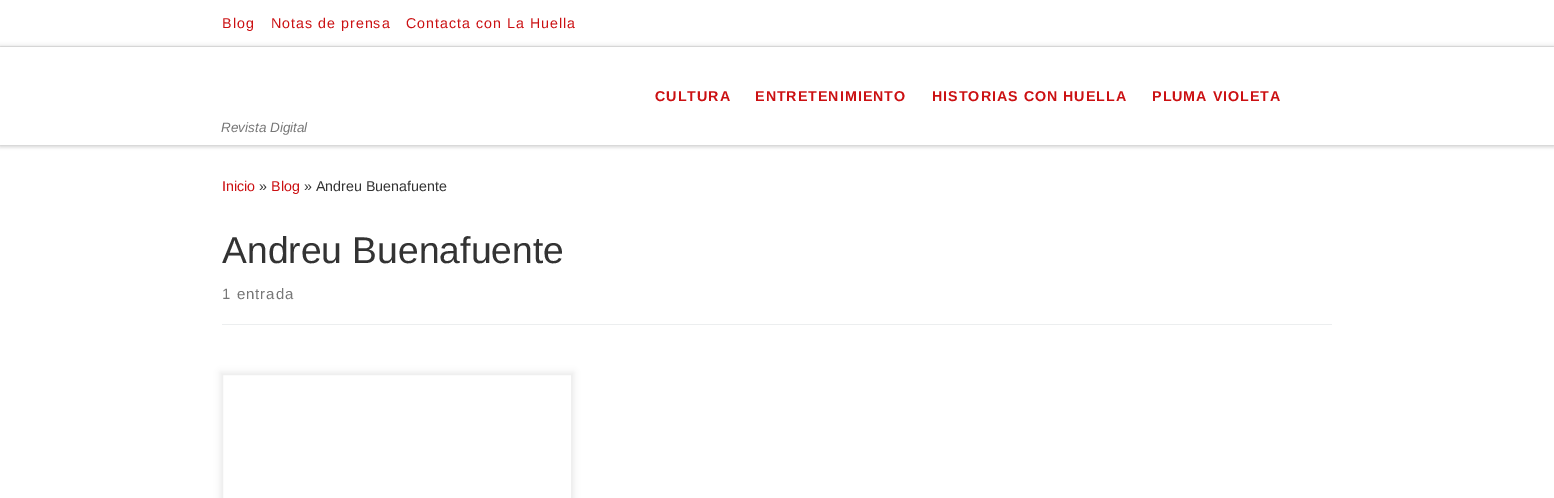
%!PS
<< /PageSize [1554 498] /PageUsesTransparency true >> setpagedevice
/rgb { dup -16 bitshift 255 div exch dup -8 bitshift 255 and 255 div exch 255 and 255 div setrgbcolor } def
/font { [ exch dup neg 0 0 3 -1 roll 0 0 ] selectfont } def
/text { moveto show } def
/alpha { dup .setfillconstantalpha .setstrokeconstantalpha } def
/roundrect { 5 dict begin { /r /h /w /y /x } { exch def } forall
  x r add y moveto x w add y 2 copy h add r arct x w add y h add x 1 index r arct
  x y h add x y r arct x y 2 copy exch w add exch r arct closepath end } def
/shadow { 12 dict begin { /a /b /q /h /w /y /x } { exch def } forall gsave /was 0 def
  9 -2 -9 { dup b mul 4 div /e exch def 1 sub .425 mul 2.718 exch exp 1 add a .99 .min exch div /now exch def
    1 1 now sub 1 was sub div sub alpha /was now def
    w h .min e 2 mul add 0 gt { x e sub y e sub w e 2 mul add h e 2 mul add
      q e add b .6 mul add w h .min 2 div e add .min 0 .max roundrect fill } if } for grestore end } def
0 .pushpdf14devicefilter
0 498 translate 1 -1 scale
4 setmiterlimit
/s1 { /LiberationSans-Italic 13.5 font 16#777777 rgb } def
/s2 { /LiberationSans-Regular 14.25 font 16#CB1012 rgb } def
/s3 { /LiberationSans-Regular 14.25 font 16#333333 rgb } def
/s4 { /LiberationSans-Regular 37.25 font 16#333333 rgb } def
16#FFFFFF rgb
0 0 1554 498 rectfill
gsave
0 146 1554 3 rectclip
16#666666 rgb
0 2 1554 146 0 1 0.08 shadow
grestore
16#ECECEC rgb
0 46 1554 1 rectfill
/LiberationSans-Regular 14.25 font
16#CB1012 rgb
222 28 moveto 1 0 (Blog) ashow
271 28 moveto 1 0 (Notas de prensa) ashow
406 28 moveto 1 0 (Contacta con La Huella) ashow
16#EFEFEF rgb
0 145 1554 1 rectfill
gsave
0 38 moveto 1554 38 lineto 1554 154 lineto 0 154 lineto closepath 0 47 moveto 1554 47 lineto 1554 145 lineto 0 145 lineto closepath eoclip newpath
16#000000 rgb
0 47 1554 98 0 2.5 0.2 shadow
grestore
/LiberationSans-Bold 14.25 font
16#CB1012 rgb
655 101 moveto 1 0 (CULTURA) ashow
755 101 moveto 1 0 (ENTRETENIMIENTO) ashow
932 101 moveto 1 0 (HISTORIAS CON HUELLA) ashow
1152 101 moveto 1 0 (PLUMA VIOLETA) ashow
s1
(Revista Digital) 221 132 text
s2
(Inicio) 222 191 text
s3
(») 259 191 text
s2
(Blog) 271 191 text
s3
(» Andreu Buenafuente) 304 191 text
s4
(Andreu Buenafuente) 222 263 text
/LiberationSans-Regular 15 font
16#777777 rgb
222 299 moveto 1 0 (1 entrada) ashow
16#ECEEEF rgb
222 324 1110 1 rectfill
gsave
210 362 moveto 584 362 lineto 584 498 lineto 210 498 lineto closepath 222 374 moveto 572 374 lineto 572 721 lineto 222 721 lineto closepath eoclip newpath
16#000000 rgb
220 372 354 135 0 3 0.07 shadow
grestore
16#EFEFEF rgb
222.5 374.5 349 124 rectstroke
.poppdf14devicefilter showpage
